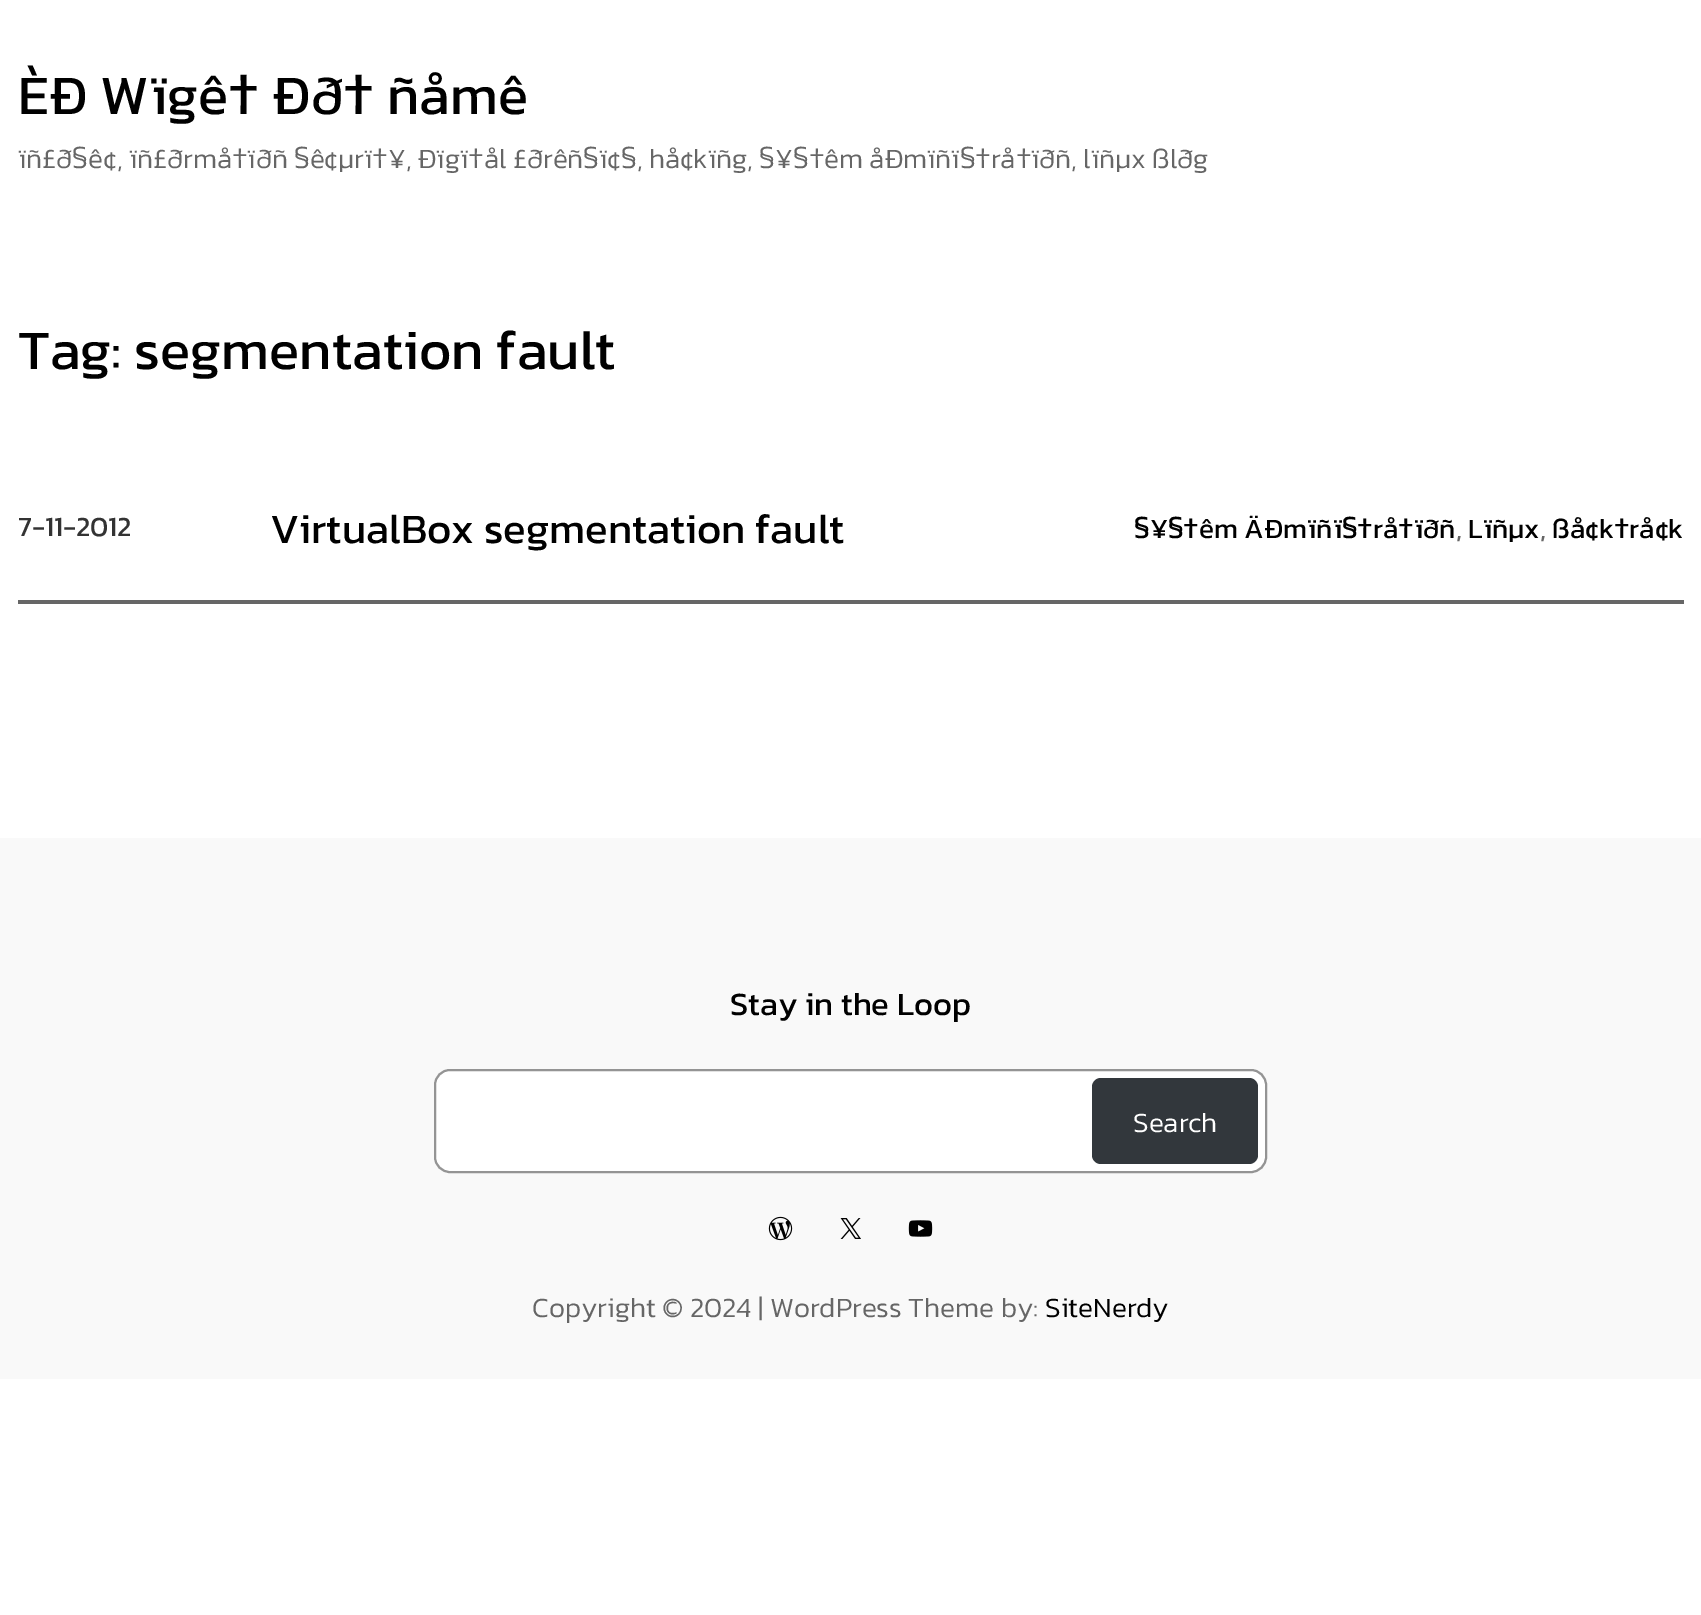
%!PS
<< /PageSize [1701 1615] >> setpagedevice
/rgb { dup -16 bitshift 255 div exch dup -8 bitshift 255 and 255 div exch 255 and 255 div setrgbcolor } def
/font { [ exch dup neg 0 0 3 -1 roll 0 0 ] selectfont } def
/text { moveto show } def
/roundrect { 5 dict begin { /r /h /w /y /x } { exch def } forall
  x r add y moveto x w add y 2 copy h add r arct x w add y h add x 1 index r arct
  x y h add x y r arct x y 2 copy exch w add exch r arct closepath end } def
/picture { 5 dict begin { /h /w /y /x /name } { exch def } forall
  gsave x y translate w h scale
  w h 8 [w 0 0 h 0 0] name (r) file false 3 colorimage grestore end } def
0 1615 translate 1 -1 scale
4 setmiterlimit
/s1 { /Kanit-Regular 56 font 16#000000 rgb } def
/s2 { /Kanit-Light 28 font 16#666666 rgb } def
/s3 { /Kanit-Regular 28 font 16#333333 rgb } def
/s4 { /Kanit-Regular 42 font 16#000000 rgb } def
/s5 { /Kanit-Regular 28 font 16#000000 rgb } def
/s6 { /Kanit-Regular 28 font 16#666666 rgb } def
/s7 { /Kanit-Regular 32.75 font 16#000000 rgb } def
/s8 { /Kanit-Light 28 font 16#FFFFFF rgb } def
/s9 { /Kanit-Light 28 font 16#000000 rgb } def
16#FFFFFF rgb
0 0 1701 1615 rectfill
s1
(ÈÐ Wïgê† Ðð† ñåmê) 18 114 text
s2
(ïñ£ð§ê¢, ïñ£ðrmå†ïðñ §ê¢µrï†¥, Ðïgï†ål £ðrêñ§ï¢§, hå¢kïñg, §¥§†êm åÐmïñï§†rå†ïðñ, lïñµx ßlðg) 18 168 text
s1
(Tag: segmentation fault) 18 369 text
s3
(7-11-2012) 18 536 text
s4
(VirtualBox segmentation fault) 270 543 text
s5
(§¥§†êm ÄÐmïñï§†rå†ïðñ) 1134 538 text
s6
(,) 1456 538 text
s5
(Lïñµx) 1468 538 text
s6
(,) 1540 538 text
s5
(ßå¢k†rå¢k) 1552 538 text
16#666666 rgb
18 600 1666 4 rectfill
16#F9F9F9 rgb
0 838 1701 541 rectfill
s7
(Stay in the Loop) 730 1015 text
16#FFFFFF rgb
435 1070 831 102 15 roundrect gsave fill grestore
16#949494 rgb
2 setlinewidth
stroke
16#32373C rgb
1092 1078 166 86 9 roundrect fill
s8
(Search) 1133 1132 text
(pic1.raw) 768 1216 25 25 picture
(pic2.raw) 840 1218 21 21 picture
(pic3.raw) 908 1220 25 17 picture
s2
(Copyright © 2024 | WordPress Theme by:) 532 1317 text
s9
(SiteNerdy) 1045 1317 text
showpage
